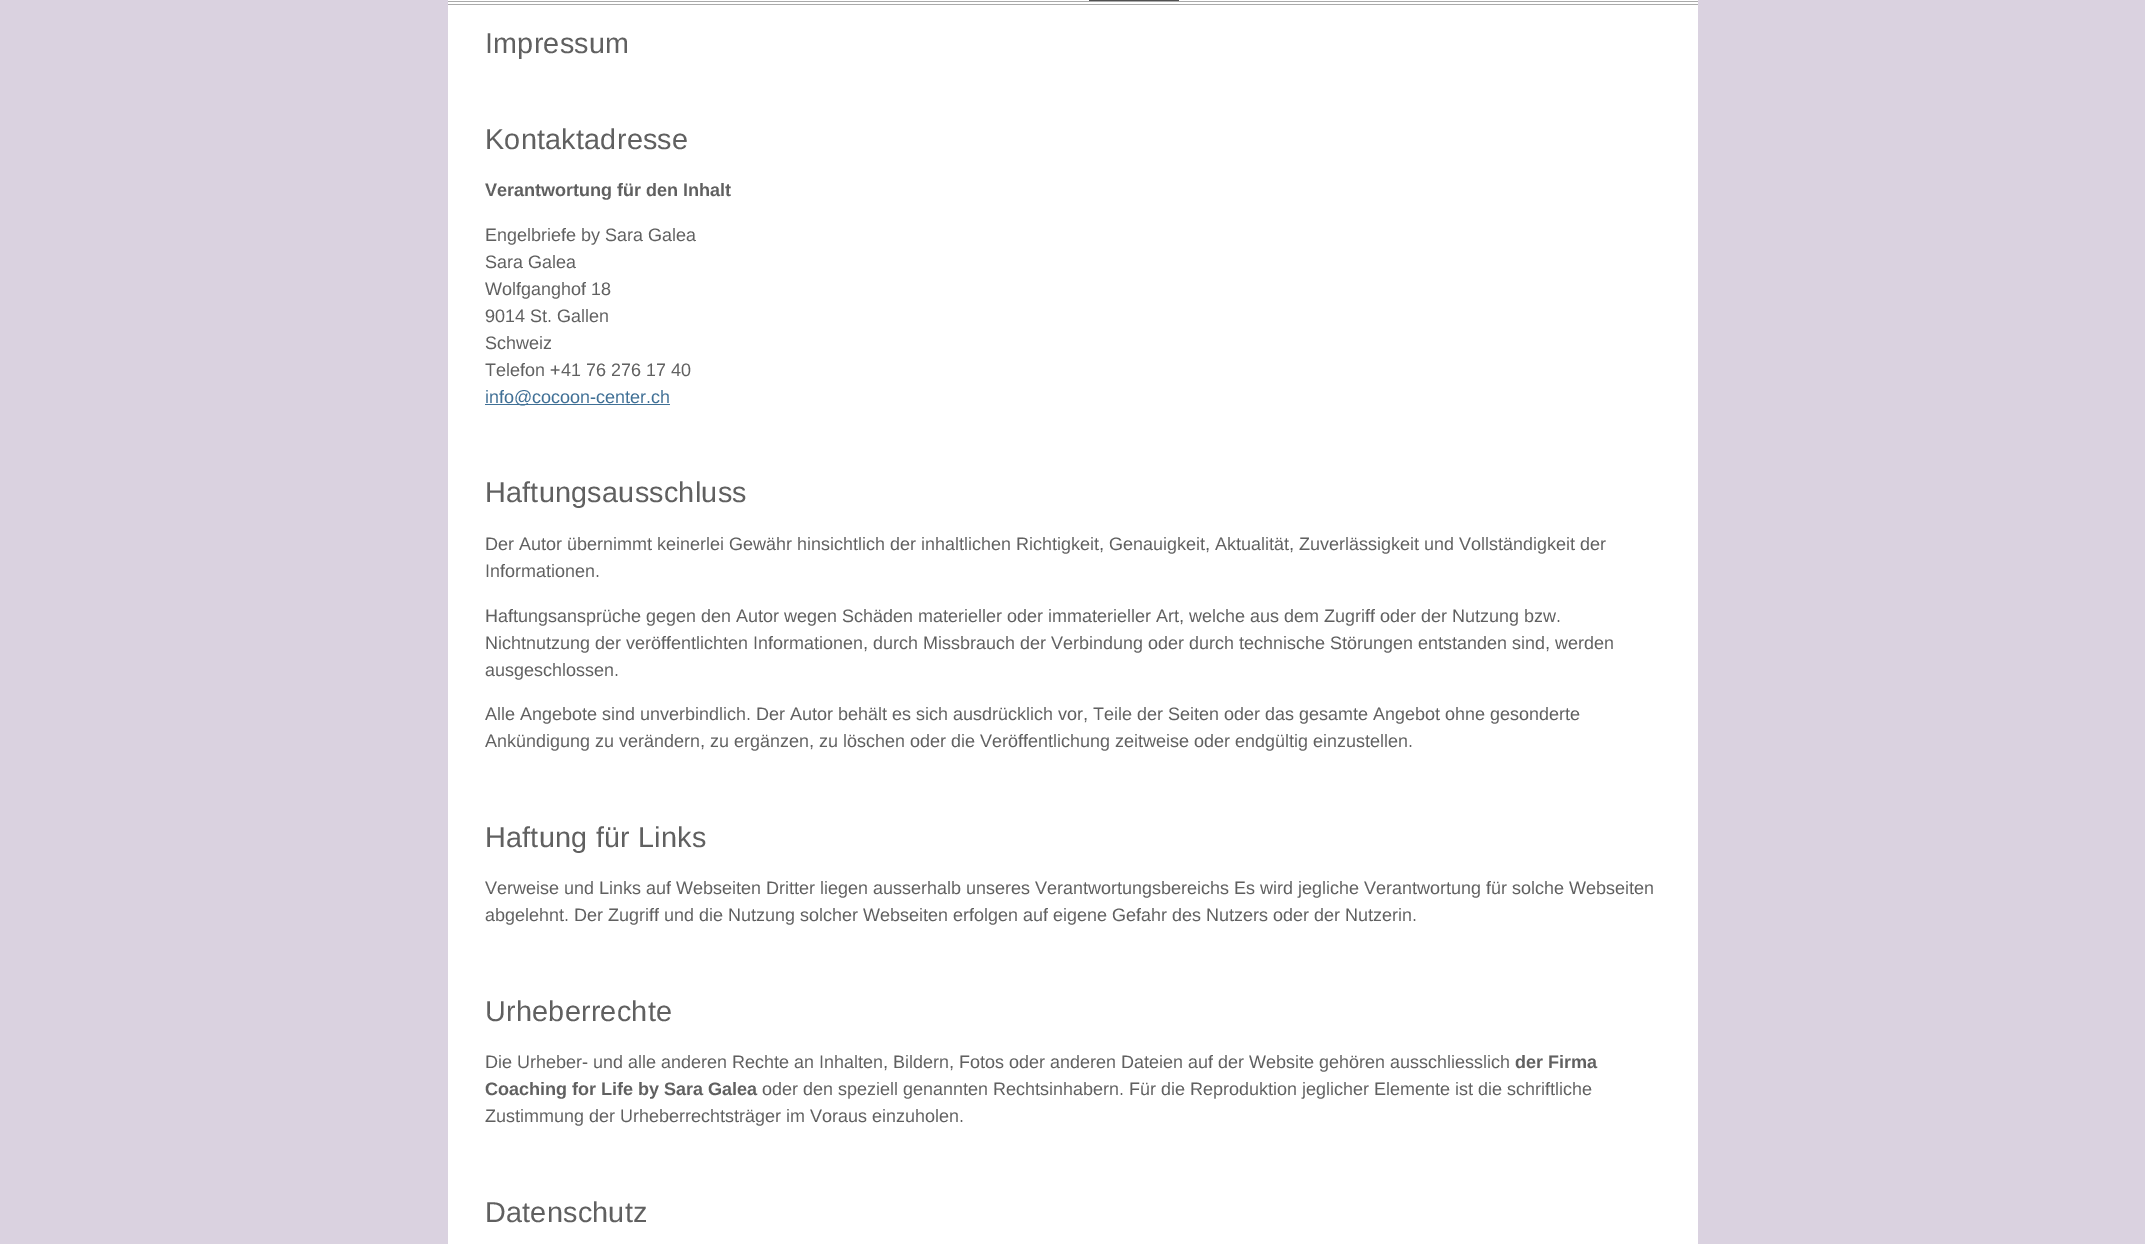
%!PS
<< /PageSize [2145 1244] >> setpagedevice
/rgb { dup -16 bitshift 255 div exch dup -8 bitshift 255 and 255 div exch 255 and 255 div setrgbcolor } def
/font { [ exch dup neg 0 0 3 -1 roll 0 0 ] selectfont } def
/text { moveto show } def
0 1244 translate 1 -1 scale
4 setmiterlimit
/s1 { /LiberationSans-Bold 18 font 16#606060 rgb } def
/s2 { /LiberationSans-Regular 18 font 16#606060 rgb } def
/s3 { /LiberationSans-Regular 18 font 16#407096 rgb } def
16#DAD2E0 rgb
0 0 2145 1244 rectfill
16#FFFFFF rgb
448 0 1250 1244 rectfill
16#AAAAAA rgb
448 1 1250 1 rectfill
448 4 1250 1 rectfill
16#505050 rgb
1089 0 90 1 rectfill
/LiberationSans-Regular 28.75 font
16#606060 rgb
485 53 moveto 0.25 0 (Impressum) ashow
485 149 moveto 0.25 0 (Kontaktadresse) ashow
s1
(Verantwortung für den Inhalt) 485 196 text
s2
(Engelbriefe by Sara Galea) 485 241 text
(Sara Galea) 485 268 text
(Wolfganghof 18) 485 295 text
(9014 St. Gallen) 485 322 text
(Schweiz) 485 349 text
(Telefon +41 76 276 17 40) 485 376 text
16#407096 rgb
485 404 185 1 rectfill
(info@cocoon-center.ch) 485 403 text
/LiberationSans-Regular 28.75 font
16#606060 rgb
485 502 moveto 0.25 0 (Haftungsausschluss) ashow
s2
(Der Autor übernimmt keinerlei Gewähr hinsichtlich der inhaltlichen Richtigkeit, Genauigkeit, Aktualität, Zuverlässigkeit und Vollständigkeit der) 485 550 text
(Informationen.) 485 577 text
(Haftungsansprüche gegen den Autor wegen Schäden materieller oder immaterieller Art, welche aus dem Zugriff oder der Nutzung bzw.) 485 622 text
(Nichtnutzung der veröffentlichten Informationen, durch Missbrauch der Verbindung oder durch technische Störungen entstanden sind, werden) 485 649 text
(ausgeschlossen.) 485 676 text
(Alle Angebote sind unverbindlich. Der Autor behält es sich ausdrücklich vor, Teile der Seiten oder das gesamte Angebot ohne gesonderte) 485 720 text
(Ankündigung zu verändern, zu ergänzen, zu löschen oder die Veröffentlichung zeitweise oder endgültig einzustellen.) 485 747 text
/LiberationSans-Regular 28.75 font
485 847 moveto 0.25 0 (Haftung für Links) ashow
s2
(Verweise und Links auf Webseiten Dritter liegen ausserhalb unseres Verantwortungsbereichs Es wird jegliche Verantwortung für solche Webseiten) 485 894 text
(abgelehnt. Der Zugriff und die Nutzung solcher Webseiten erfolgen auf eigene Gefahr des Nutzers oder der Nutzerin.) 485 921 text
/LiberationSans-Regular 28.75 font
485 1021 moveto 0.25 0 (Urheberrechte) ashow
s2
(Die Urheber- und alle anderen Rechte an Inhalten, Bildern, Fotos oder anderen Dateien auf der Website gehören ausschliesslich) 485 1068 text
s1
(der Firma) 1515 1068 text
(Coaching for Life by Sara Galea) 485 1095 text
s2
(oder den speziell genannten Rechtsinhabern. Für die Reproduktion jeglicher Elemente ist die schriftliche) 762 1095 text
(Zustimmung der Urheberrechtsträger im Voraus einzuholen.) 485 1122 text
/LiberationSans-Regular 28.75 font
485 1222 moveto 0.25 0 (Datenschutz) ashow
showpage
